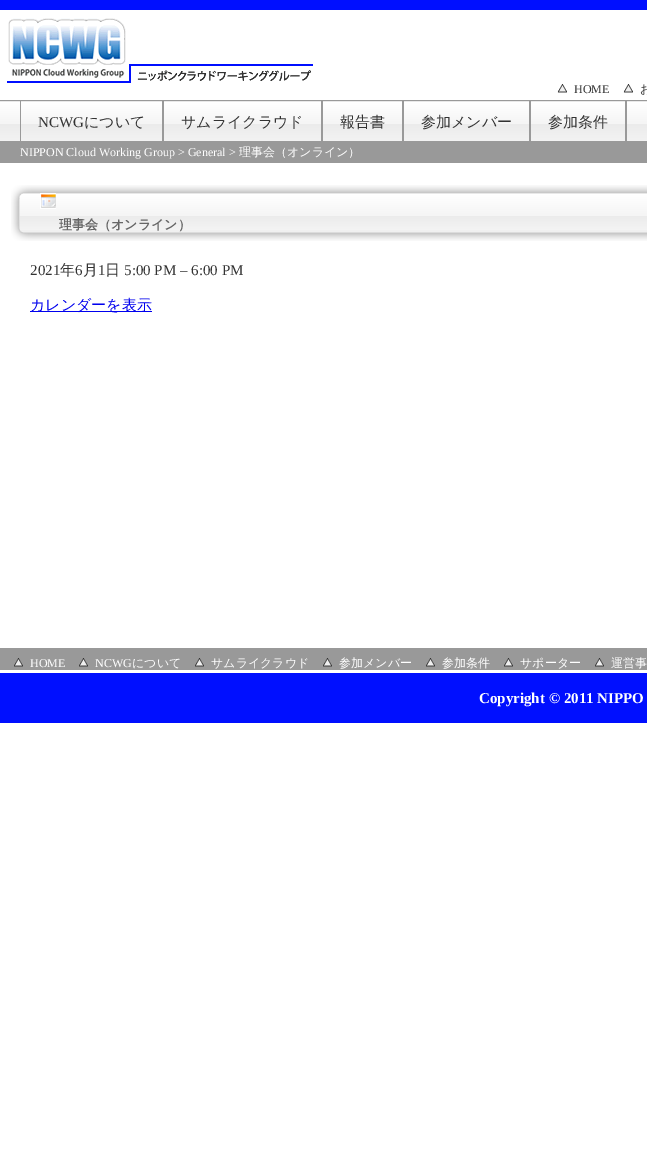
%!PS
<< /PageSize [647 1169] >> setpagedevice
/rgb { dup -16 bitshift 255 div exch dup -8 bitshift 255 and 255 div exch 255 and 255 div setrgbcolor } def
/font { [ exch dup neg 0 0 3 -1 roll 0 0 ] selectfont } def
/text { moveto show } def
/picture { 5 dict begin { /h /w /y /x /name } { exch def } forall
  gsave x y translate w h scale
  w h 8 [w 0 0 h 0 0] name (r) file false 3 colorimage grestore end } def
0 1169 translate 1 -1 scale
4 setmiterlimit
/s1 { /LiberationSerif-Regular 12 font 16#333333 rgb } def
/s2 { /WenQuanYiZenHei-Medium 12 font 16#333333 rgb } def
/s3 { /LiberationSerif-Regular 15 font 16#333333 rgb } def
/s4 { /WenQuanYiZenHei-Medium 15 font 16#333333 rgb } def
/s5 { /LiberationSerif-Regular 12 font 16#FFFFFF rgb } def
/s6 { /WenQuanYiZenHei-Medium 12 font 16#FFFFFF rgb } def
/s7 { /WenQuanYiZenHei-Bold 13 font 16#666666 rgb } def
/s8 { /WenQuanYiZenHei-Medium 15 font 16#0000EE rgb } def
/s9 { /LiberationSerif-Bold 15 font 16#FFFFFF rgb } def
16#FFFFFF rgb
0 0 647 1169 rectfill
16#000FFF rgb
0 0 647 10 rectfill
(pic1.raw) 7 18 306 65 picture
(pic2.raw) 557 84 10 9 picture
s1
(HOME) 574 93 text
(pic2.raw) 623 84 10 9 picture
s2
(お) 640 93 text
(pic3.raw) 0 101 647 40 picture
16#999999 rgb
0 100 647 1 rectfill
162 101 2 40 rectfill
20 101 1 40 rectfill
s3
(NCWG) 38 127 text
s4
(について) 84 127 text
16#999999 rgb
321 101 2 40 rectfill
s4
(サムライクラウド) 181 127 text
16#999999 rgb
402 101 2 40 rectfill
s4
(報告書) 340 127 text
16#999999 rgb
529 101 2 40 rectfill
s4
(参加メンバー) 421 127 text
16#999999 rgb
625 101 2 40 rectfill
s4
(参加条件) 548 127 text
16#999999 rgb
0 141 647 22 rectfill
s5
(NIPPON Cloud Working Group > General >) 20 156 text
s6
(理事会（オンライン）) 239 156 text
(pic4.raw) 11 185 636 56 picture
40 193 16 16 rectfill
(pic5.raw) 41 194 15 14 picture
s7
(理事会（オンライン）) 59 229 text
s3
(2021) 30 275 text
s4
(年) 60 275 text
s3
(6) 75 275 text
s4
(月) 83 275 text
s3
(1) 98 275 text
s4
(日) 105 275 text
s3
(5:00 PM – 6:00 PM) 124 275 text
16#0000EE rgb
30 311 122 1 rectfill
s8
(カレンダーを表示) 30 310 text
16#999999 rgb
0 648 647 22 rectfill
(pic6.raw) 14 658 9 9 picture
s5
(HOME) 30 667 text
(pic6.raw) 79 658 9 9 picture
(NCWG) 95 667 text
s6
(について) 132 667 text
(pic6.raw) 195 658 9 9 picture
(サムライクラウド) 211 667 text
(pic6.raw) 323 658 9 9 picture
(参加メンバー) 339 667 text
(pic6.raw) 426 658 9 9 picture
(参加条件) 442 667 text
(pic6.raw) 504 658 9 9 picture
(サポーター) 520 667 text
(pic6.raw) 595 658 9 9 picture
(運営事) 611 667 text
16#000FFF rgb
0 673 647 50 rectfill
s9
(Copyright © 2011 NIPPO) 479 703 text
showpage
